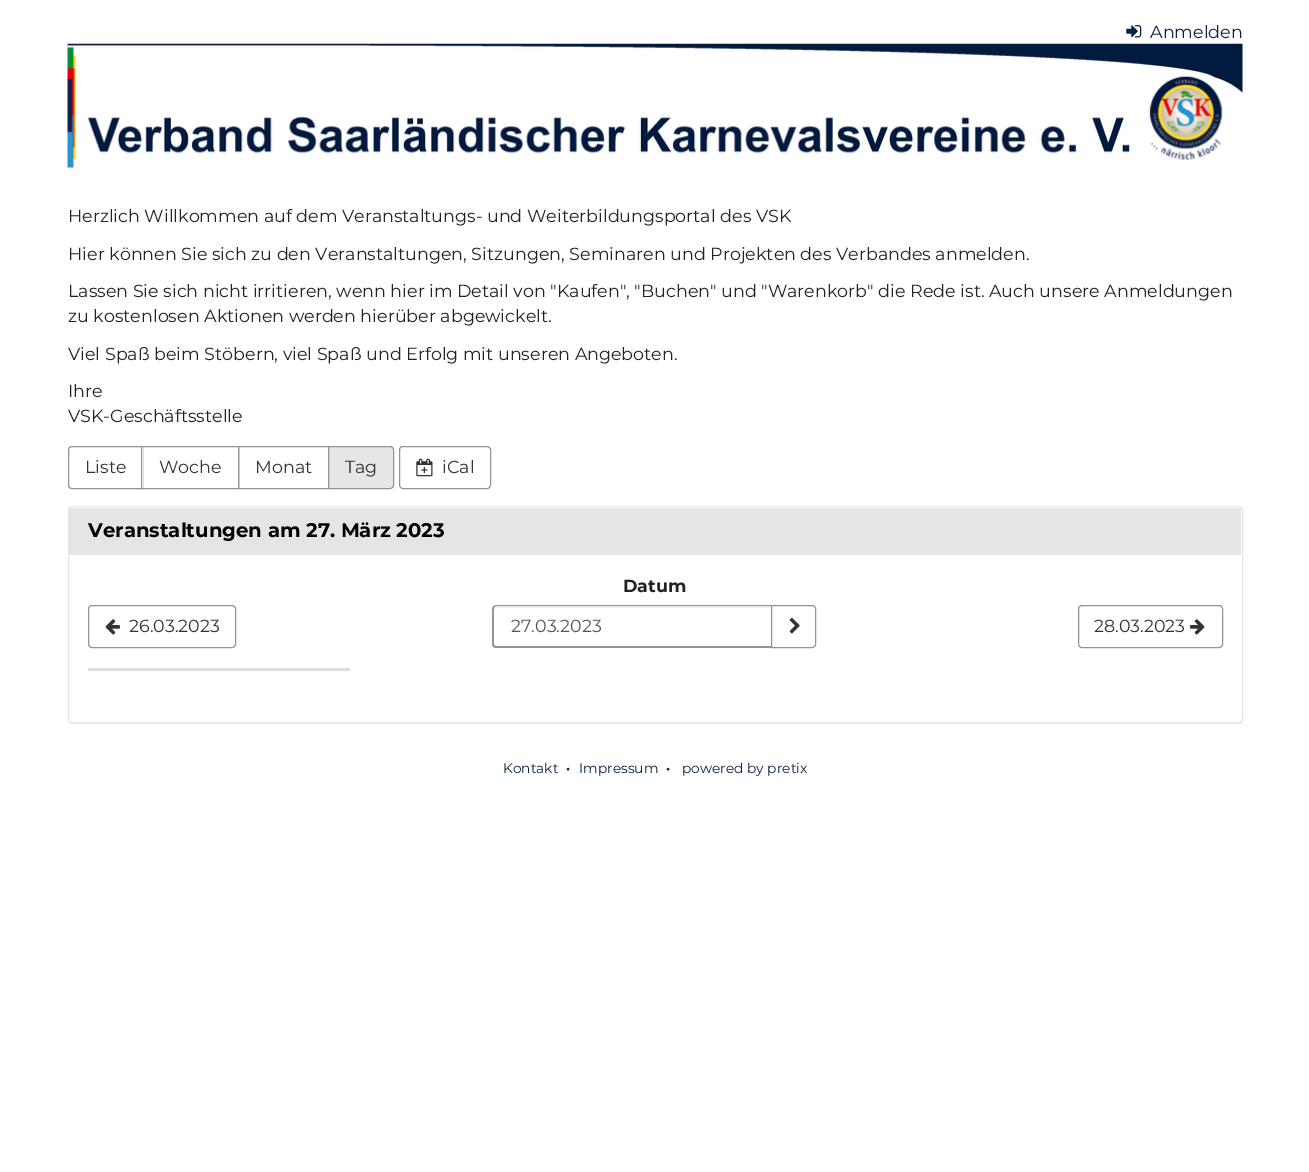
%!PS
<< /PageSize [1309 1172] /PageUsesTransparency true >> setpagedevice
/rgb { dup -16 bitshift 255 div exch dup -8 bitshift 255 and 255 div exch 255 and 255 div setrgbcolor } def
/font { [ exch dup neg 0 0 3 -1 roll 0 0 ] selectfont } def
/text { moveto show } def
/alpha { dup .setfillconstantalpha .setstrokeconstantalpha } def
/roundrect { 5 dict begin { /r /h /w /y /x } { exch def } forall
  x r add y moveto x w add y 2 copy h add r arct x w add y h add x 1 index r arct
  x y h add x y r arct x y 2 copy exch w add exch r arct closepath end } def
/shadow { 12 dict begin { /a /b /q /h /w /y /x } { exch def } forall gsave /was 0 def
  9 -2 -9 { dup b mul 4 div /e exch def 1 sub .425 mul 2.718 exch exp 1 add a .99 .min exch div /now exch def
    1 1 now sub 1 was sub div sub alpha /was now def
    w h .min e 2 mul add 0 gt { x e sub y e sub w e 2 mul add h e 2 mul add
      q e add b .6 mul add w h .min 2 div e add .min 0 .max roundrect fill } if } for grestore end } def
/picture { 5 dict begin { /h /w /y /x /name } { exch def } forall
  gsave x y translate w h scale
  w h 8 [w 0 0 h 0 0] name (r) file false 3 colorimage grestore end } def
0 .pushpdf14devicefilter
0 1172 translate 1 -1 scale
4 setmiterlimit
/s1 { /Montserrat-Regular 17.5 font 16#062345 rgb } def
/s2 { /Montserrat-Regular 17.5 font 16#222222 rgb } def
/s3 { /Montserrat-Regular 17.5 font 16#333333 rgb } def
/s4 { /Montserrat-Bold 19.7 font 16#000000 rgb } def
/s5 { /Montserrat-Bold 17.5 font 16#222222 rgb } def
/s6 { /Montserrat-Regular 17.5 font 16#555555 rgb } def
/s7 { /Montserrat-Regular 13.75 font 16#062345 rgb } def
/s8 { /Montserrat-Bold 13.75 font 16#222222 rgb } def
16#FFFFFF rgb
0 0 1309 1172 rectfill
(pic1.raw) 1126 25 16 13 picture
s1
(Anmelden) 1150 38 text
(pic2.raw) 67 43 1176 125 picture
s2
(Herzlich Willkommen auf dem Veranstaltungs- und Weiterbildungsportal des VSK) 68 222 text
(Hier können Sie sich zu den Veranstaltungen, Sitzungen, Seminaren und Projekten des Verbandes anmelden.) 68 260 text
(Lassen Sie sich nicht irritieren, wenn hier im Detail von "Kaufen", "Buchen" und "Warenkorb" die Rede ist. Auch unsere Anmeldungen) 68 297 text
(zu kostenlosen Aktionen werden hierüber abgewickelt.) 68 322 text
(Viel Spaß beim Stöbern, viel Spaß und Erfolg mit unseren Angeboten.) 68 360 text
(Ihre) 68 397 text
(VSK-Geschäftsstelle) 68 422 text
16#949494 rgb
72 446.5 moveto 142.5 446.5 lineto 142.5 488.5 lineto 72 488.5 lineto 70 488.5 68.5 487 68.5 485 curveto 68.5 450 lineto 68.5 448 70 446.5 72 446.5 curveto closepath stroke
s3
(Liste) 85 473 text
16#FFFFFF rgb
142 447 1 41 rectfill
16#949494 rgb
141.5 446.5 97 42 rectstroke
s3
(Woche) 159 473 text
16#949494 rgb
238.5 446.5 90 42 rectstroke
s3
(Monat) 255 473 text
16#E6E6E6 rgb
328.5 446.5 moveto 390 446.5 lineto 392 446.5 393.5 448 393.5 450 curveto 393.5 485 lineto 393.5 487 392 488.5 390 488.5 curveto 328.5 488.5 lineto closepath gsave fill grestore
16#949494 rgb
stroke
s3
(Tag) 345 473 text
16#949494 rgb
399.5 446.5 91 42 3.5 roundrect stroke
(pic3.raw) 416 458 17 19 picture
s3
(iCal) 442 473 text
16#000000 rgb
68 508 1175 216 4 0.5 0.05 shadow
16#FFFFFF rgb
68.5 506.5 1174 216 3.5 roundrect gsave fill grestore
16#E5E5E5 rgb
stroke
69 508 1172 47 rectfill
s4
(Veranstaltungen am 27. März 2023) 88 537 text
16#949494 rgb
88.5 605.5 147 42 3.5 roundrect stroke
(pic4.raw) 105 619 15 16 picture
s3
(26.03.2023) 129 632 text
s5
(Datum) 623 592 text
16#ECECEC rgb
496 608 moveto 771 608 lineto 771 606 lineto 496 606 lineto 494 606 494 608 494 610 curveto 494 609 495 608 496 608 curveto closepath fill
16#949494 rgb
496 605 moveto 771 605 lineto 771 648 lineto 496 648 lineto 494 648 492 646 492 644 curveto 492 609 lineto 492 607 494 605 496 605 curveto closepath 496 606 moveto 771 606 lineto 771 646 lineto 496 646 lineto 495 646 494 645 494 644 curveto 494 609 lineto 494 607 495 606 496 606 curveto closepath eofill
s6
(27.03.2023) 511 632 text
16#949494 rgb
771.5 605.5 moveto 812 605.5 lineto 814 605.5 815.5 607 815.5 609 curveto 815.5 644 lineto 815.5 646 814 647.5 812 647.5 curveto 771.5 647.5 lineto closepath stroke
(pic5.raw) 789 617 11 17 picture
1078.5 605.5 144 42 3.5 roundrect stroke
s3
(28.03.2023) 1094 632 text
(pic6.raw) 1190 619 15 16 picture
16#DDDDDD rgb
88 668 262 3 rectfill
s7
(Kontakt) 503 773 text
s8
(·) 566 773 text
s7
(Impressum) 579 773 text
s8
(·) 666 773 text
s7
(powered by pretix) 682 773 text
.poppdf14devicefilter showpage
